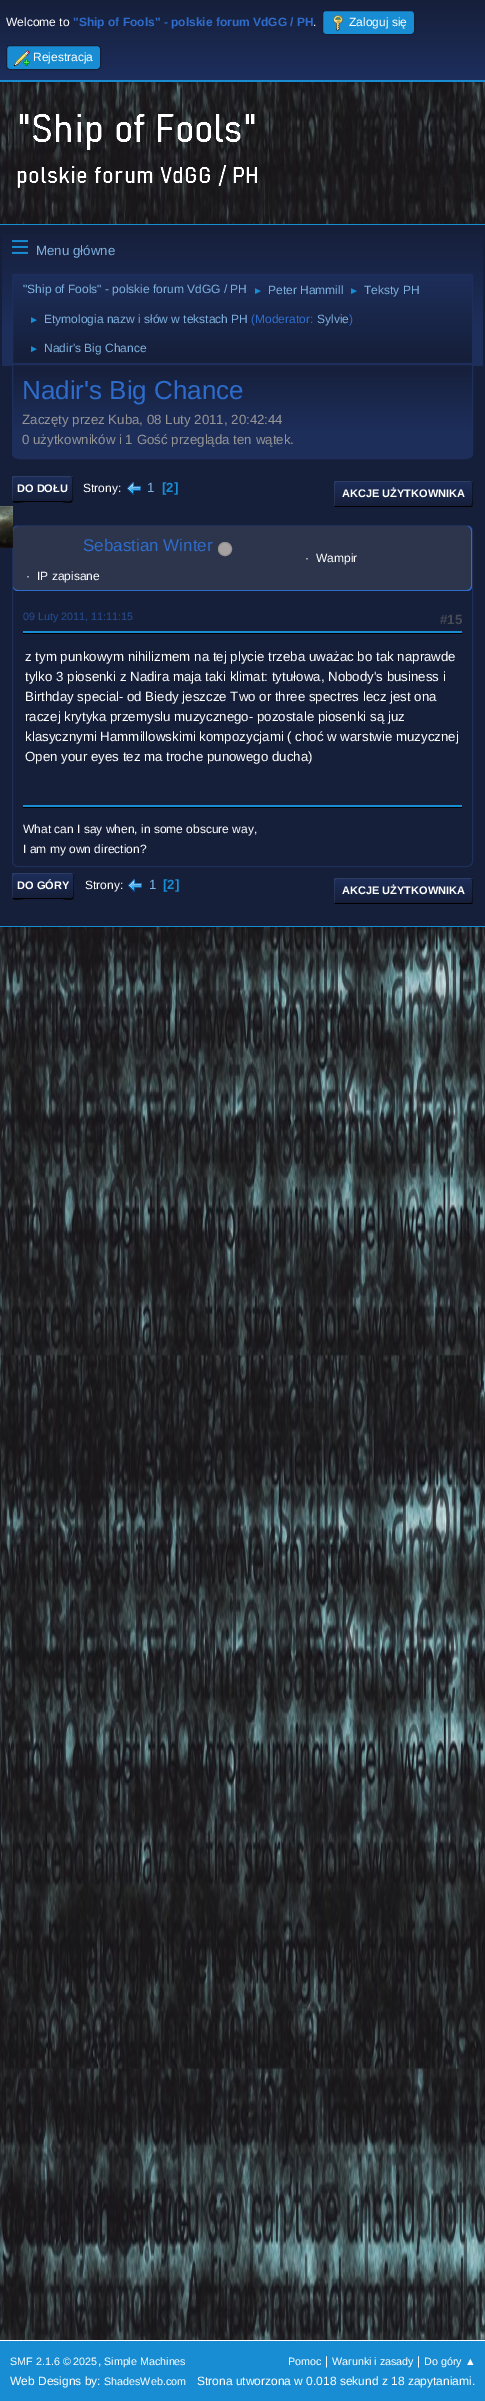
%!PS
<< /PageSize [485 2401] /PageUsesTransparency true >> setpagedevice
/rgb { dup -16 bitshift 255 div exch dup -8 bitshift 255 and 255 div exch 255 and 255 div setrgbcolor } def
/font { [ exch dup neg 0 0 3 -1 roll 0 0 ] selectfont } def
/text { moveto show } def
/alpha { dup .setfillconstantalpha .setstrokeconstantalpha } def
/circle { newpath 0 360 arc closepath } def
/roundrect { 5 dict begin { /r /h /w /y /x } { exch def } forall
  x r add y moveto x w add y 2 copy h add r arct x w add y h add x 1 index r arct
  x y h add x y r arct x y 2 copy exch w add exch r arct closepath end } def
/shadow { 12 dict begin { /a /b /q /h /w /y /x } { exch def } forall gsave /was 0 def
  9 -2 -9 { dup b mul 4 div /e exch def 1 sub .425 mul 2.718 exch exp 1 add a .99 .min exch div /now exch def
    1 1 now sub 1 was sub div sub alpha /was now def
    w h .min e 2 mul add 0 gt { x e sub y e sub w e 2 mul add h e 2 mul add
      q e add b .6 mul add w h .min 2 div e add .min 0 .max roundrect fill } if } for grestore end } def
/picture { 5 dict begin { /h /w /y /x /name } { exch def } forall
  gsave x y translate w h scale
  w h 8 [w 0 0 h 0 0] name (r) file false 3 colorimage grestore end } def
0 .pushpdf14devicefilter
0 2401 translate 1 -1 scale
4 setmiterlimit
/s1 { /LiberationSans-Regular 12 font 16#FFFFFF rgb } def
/s2 { /LiberationSans-Bold 12 font 16#2E6CCB rgb } def
/s3 { /LiberationSans-Regular 13.3 font 16#7DB0DE rgb } def
/s4 { /LiberationSans-Regular 12 font 16#7DB0DE rgb } def
/s5 { /LiberationSans-Regular 10 font 16#188DD3 rgb } def
/s6 { /LiberationSans-Regular 12 font 16#2E6CCB rgb } def
/s7 { /LiberationSans-Regular 26 font 16#2E6CCB rgb } def
/s8 { /LiberationSans-Regular 13.3 font 16#959595 rgb } def
/s9 { /LiberationSans-Bold 11 font 16#FFFFFF rgb } def
/s10 { /LiberationSans-Bold 13.3 font 16#188DD3 rgb } def
/s11 { /LiberationSans-Regular 17 font 16#2E6CCB rgb } def
/s12 { /LiberationSans-Regular 10.75 font 16#244D91 rgb } def
/s13 { /LiberationSans-Bold 13.3 font 16#464A54 rgb } def
/s14 { /LiberationSans-Regular 13.3 font 16#FFFFFF rgb } def
/s15 { /LiberationSans-Regular 10.75 font 16#FFFFFF rgb } def
16#FFFFFF rgb
0 0 485 2401 rectfill
(pic1.raw) 0 82 485 2258 picture
16#000000 rgb
0 1 485 82 0 2 0.16 shadow
gsave 0 0 moveto 485 0 lineto 485 80 lineto 0 80 lineto closepath clip newpath
<< /ShadingType 2 /ColorSpace /DeviceRGB /Coords [243 0 243 80] /Extend [true true] /Function << /FunctionType 2 /Domain [0 1] /C0 [0.086 0.122 0.227] /C1 [0.114 0.18 0.365] /N 1 >> >> shfill grestore
16#188DD3 rgb
0 80 485 2 rectfill
s1
(Welcome to) 6 26 text
s2
("Ship of Fools" - polskie forum VdGG / PH) 73 26 text
s1
(.) 313 26 text
16#188DD3 rgb
322.5 10.5 92 24 3.5 roundrect gsave fill grestore
16#161F3A rgb
stroke
(pic2.raw) 333 15 10 16 picture
s1
(Zaloguj się) 349 26 text
16#188DD3 rgb
6.5 45.5 94 24 3.5 roundrect gsave fill grestore
16#161F3A rgb
stroke
(pic3.raw) 14 50 16 16 picture
s1
(Rejestracja) 33 61 text
(pic4.raw) 17 114 240 74 picture
16#000000 rgb
0 226 485 703 0 1.5 0.14 shadow
16#161F3A rgb
0 225 485 701 rectfill
16#188DD3 rgb
0 224 485 1 rectfill
0 926 485 1 rectfill
gsave 2 235 moveto 483 235 lineto 483 366 lineto 2 366 lineto closepath clip newpath
<< /ShadingType 2 /ColorSpace /DeviceRGB /Coords [243 227 243 366] /Extend [true true] /Function << /FunctionType 3 /Domain [0 1] /Functions [<< /FunctionType 2 /Domain [0 1] /C0 [0.086 0.122 0.227] /C1 [0.114 0.18 0.353] /N 1 >> << /FunctionType 2 /Domain [0 1] /C0 [0.114 0.18 0.353] /C1 [0.114 0.18 0.353] /N 1 >>] /Bounds [0.7] /Encode [0 1 0 1] >> >> shfill grestore
(pic5.raw) 12 240 16 14 picture
s3
(Menu główne) 36 255 text
gsave
12 274 461 90 2 roundrect clip newpath
gsave 12 275 moveto 473 275 lineto 473 363 lineto 12 363 lineto closepath clip newpath
<< /ShadingType 2 /ColorSpace /DeviceRGB /Coords [243 275 243 363] /Extend [true true] /Function << /FunctionType 3 /Domain [0 1] /Functions [<< /FunctionType 2 /Domain [0 1] /C0 [0.114 0.18 0.353] /C1 [0.086 0.122 0.227] /N 1 >> << /FunctionType 2 /Domain [0 1] /C0 [0.086 0.122 0.227] /C1 [0.086 0.122 0.227] /N 1 >>] /Bounds [0.95] /Encode [0 1 0 1] >> >> shfill grestore
grestore
16#1D2E5A rgb
12.5 274.5 460 89 1.5 roundrect stroke
s4
("Ship of Fools" - polskie forum VdGG / PH) 23 293 text
s5
(►) 253 294 text
s4
(Peter Hammill) 268 294 text
s5
(►) 349 294 text
s4
(Teksty PH) 364 294 text
s5
(►) 29 323 text
s4
(Etymologia nazw i słów w tekstach PH) 44 323 text
s6
(\(Moderator:) 251 323 text
s4
(Sylvie) 317 323 text
s6
(\)) 349 323 text
s5
(►) 29 352 text
s4
(Nadir's Big Chance) 44 352 text
gsave
12 364 moveto 473 364 lineto 473 452 lineto 473 456 470 459 466 459 curveto 19 459 lineto 15 459 12 456 12 452 curveto closepath clip newpath
gsave 12 365 moveto 473 365 lineto 473 458 lineto 12 458 lineto closepath clip newpath
<< /ShadingType 2 /ColorSpace /DeviceRGB /Coords [243 365 243 458] /Extend [true true] /Function << /FunctionType 3 /Domain [0 1] /Functions [<< /FunctionType 2 /Domain [0 1] /C0 [0.086 0.122 0.227] /C1 [0.114 0.18 0.353] /N 1 >> << /FunctionType 2 /Domain [0 1] /C0 [0.114 0.18 0.353] /C1 [0.114 0.18 0.353] /N 1 >>] /Bounds [0.7] /Encode [0 1 0 1] >> >> shfill grestore
grestore
16#1D2E5A rgb
12.5 364.5 moveto 472.5 364.5 lineto 472.5 452 lineto 472.5 455.5 469.5 458.5 466 458.5 curveto 19 458.5 lineto 15.5 458.5 12.5 455.5 12.5 452 curveto closepath stroke
s7
(Nadir's Big Chance) 22 399 text
s8
(Zaczęty przez Kuba, 08 Luty 2011, 20:42:44) 22 424 text
(0 użytkowników i 1 Gość przegląda ten wątek.) 22 444 text
16#000000 rgb
12 499 moveto 12 505 20 502 24 502 curveto 62 502 lineto 65 502 73 505 73 499 curveto 72 500 lineto 70 503 65 501 62 501 curveto 13 501 lineto closepath fill
gsave 12 476 61 25 2 roundrect clip newpath
<< /ShadingType 2 /ColorSpace /DeviceRGB /Coords [43 476 43 501] /Extend [true true] /Function << /FunctionType 2 /Domain [0 1] /C0 [0.114 0.18 0.353] /C1 [0.086 0.122 0.227] /N 1 >> >> shfill grestore
0.47 alpha
70 501 moveto 74 501 73 499 73 495.5 curveto 73 481.5 lineto 73 478 74 476 70 476 curveto 71 476 72 477 72 478 curveto 72 499 lineto 72 500 71 501 70 501 curveto closepath fill
0.07 alpha
16#FFFFFF rgb
15 477 moveto 73 477 lineto 73 477 72 476 71 476 curveto 14 476 lineto 13 476 12 477 12 478 curveto 12 499 lineto 12 500 13 501 13 501 curveto 13 482 lineto 13 481 12 477 15 477 curveto closepath fill
1 alpha
s9
(DO DOŁU) 17 492 text
s1
(Strony:) 83 492 text
(pic6.raw) 127 482 14 13 picture
s3
(1) 147 492 text
s10
([2]) 162 492 text
16#000000 rgb
334 504 moveto 334 505 334 507 336 507 curveto 471 507 lineto 473 507 473 505 473 504 curveto 473 505 472 506 471 506 curveto 336 506 lineto 334 505 lineto closepath fill
gsave 334 481 139 25 2 roundrect clip newpath
<< /ShadingType 2 /ColorSpace /DeviceRGB /Coords [404 481 404 506] /Extend [true true] /Function << /FunctionType 2 /Domain [0 1] /C0 [0.114 0.18 0.353] /C1 [0.086 0.122 0.227] /N 1 >> >> shfill grestore
0.47 alpha
470 506 moveto 474 506 473 504 473 500.5 curveto 473 486.5 lineto 473 483 474 481 470 481 curveto 471 481 472 482 472 483 curveto 472 504 lineto 472 505 471 506 470 506 curveto closepath fill
0.07 alpha
16#FFFFFF rgb
337 482 moveto 473 482 lineto 473 482 472 481 471 481 curveto 336 481 lineto 335 481 334 482 334 483 curveto 334 504 lineto 334 505 335 506 335 506 curveto 335 488 lineto 335 486 334 482 337 482 curveto closepath fill
1 alpha
s9
(AKCJE UŻYTKOWNIKA) 342 497 text
16#1D2E5A rgb
12.5 525.5 460 341 5.5 roundrect stroke
16#2D354D rgb
13 526 459 65 5 roundrect fill
16#2E6CCB rgb
18 526 moveto 467 526 lineto 470 526 472 528 472 531 curveto 472 586 lineto 472 589 470 591 467 591 curveto 18 591 lineto 15 591 13 589 13 586 curveto 13 531 lineto 13 528 15 526 18 526 curveto closepath 18 526 moveto 467 526 lineto 469 526 471 528 471 531 curveto 471 586 lineto 471 588 469 590 467 590 curveto 18 590 lineto 15 590 13 588 13 586 curveto 13 531 lineto 13 528 15 526 18 526 curveto closepath eofill
s11
(Sebastian Winter) 83 551 text
16#A7A2A2 rgb
225 549 6.5 circle gsave fill grestore
16#969292 rgb
stroke
(pic7.raw) 0 506 13 42 picture
s1
(·) 305 562 text
(Wampir) 316 562 text
(·) 26 580 text
(IP zapisane) 37 580 text
s12
(09 Luty 2011, 11:11:15) 23 620 text
s13
(#15) 440 624 text
16#000000 rgb
23 633 439 1 rectfill
16#188DD3 rgb
23 631 439 2 rectfill
s14
(z tym punkowym nihilizmem na tej plycie trzeba uważac bo tak naprawde) 25 661 text
(tylko 3 piosenki z Nadira maja taki klimat: tytułowa, Nobody's business i) 25 681 text
(Birthday special- od Biedy jeszcze Two or three spectres lecz jest ona) 25 701 text
(raczej krytyka przemyslu muzycznego- pozostale piosenki są juz) 25 721 text
(klasycznymi Hammillowskimi kompozycjami \( choć w warstwie muzycznej) 25 741 text
(Open your eyes tez ma troche punowego ducha\)) 25 761 text
16#000000 rgb
23 807 439 1 rectfill
16#188DD3 rgb
23 805 439 2 rectfill
s1
(What can I say when, in some obscure way,) 23 833 text
(I am my own direction?) 23 853 text
16#000000 rgb
12 896 moveto 12 902 20 899 24 899 curveto 62 899 lineto 66 899 74 902 74 896 curveto 74 900 66 898 62 898 curveto 13 898 lineto closepath fill
gsave 12 873 62 25 2 roundrect clip newpath
<< /ShadingType 2 /ColorSpace /DeviceRGB /Coords [43 873 43 898] /Extend [true true] /Function << /FunctionType 2 /Domain [0 1] /C0 [0.114 0.18 0.353] /C1 [0.086 0.122 0.227] /N 1 >> >> shfill grestore
0.47 alpha
71 898 moveto 75 898 74 896 74 892.5 curveto 74 878.5 lineto 74 875 75 873 71 873 curveto 72 873 73 874 73 875 curveto 73 896 lineto 73 897 72 898 71 898 curveto closepath fill
0.07 alpha
16#FFFFFF rgb
15 874 moveto 74 874 lineto 74 874 73 873 72 873 curveto 14 873 lineto 13 873 12 874 12 875 curveto 12 896 lineto 12 897 13 898 13 898 curveto 13 880 lineto 13 878 12 874 15 874 curveto closepath fill
1 alpha
s9
(DO GÓRY) 17 889 text
s1
(Strony:) 85 889 text
(pic6.raw) 128 879 14 13 picture
s3
(1) 149 889 text
s10
([2]) 163 889 text
16#000000 rgb
334 901 moveto 334 902 334 904 336 904 curveto 471 904 lineto 473 904 473 902 473 901 curveto 473 902 472 903 471 903 curveto 336 903 lineto 334 902 lineto closepath fill
gsave 334 878 139 25 2 roundrect clip newpath
<< /ShadingType 2 /ColorSpace /DeviceRGB /Coords [404 878 404 903] /Extend [true true] /Function << /FunctionType 2 /Domain [0 1] /C0 [0.114 0.18 0.353] /C1 [0.086 0.122 0.227] /N 1 >> >> shfill grestore
0.47 alpha
470 903 moveto 474 903 473 901 473 897.5 curveto 473 883.5 lineto 473 880 474 878 470 878 curveto 471 878 472 879 472 880 curveto 472 901 lineto 472 902 471 903 470 903 curveto closepath fill
0.07 alpha
16#FFFFFF rgb
337 879 moveto 473 879 lineto 473 879 472 878 471 878 curveto 336 878 lineto 335 878 334 879 334 880 curveto 334 901 lineto 334 902 335 903 335 903 curveto 335 884 lineto 335 883 334 879 337 879 curveto closepath fill
1 alpha
s9
(AKCJE UŻYTKOWNIKA) 342 894 text
16#188DD3 rgb
0 2341 485 60 rectfill
s15
(SMF 2.1.6 © 2025) 10 2365 text
s1
(,) 98 2365 text
s15
(Simple Machines) 104 2365 text
(Pomoc) 288 2365 text
s1
(|) 325 2365 text
s15
(Warunki i zasady) 332 2365 text
s1
(|) 417 2365 text
s15
(Do góry ▲) 424 2365 text
s1
(Web Designs by:) 10 2385 text
s15
(ShadesWeb.com) 104 2385 text
s1
(Strona utworzona w 0.018 sekund z 18 zapytaniami.) 197 2385 text
.poppdf14devicefilter showpage
